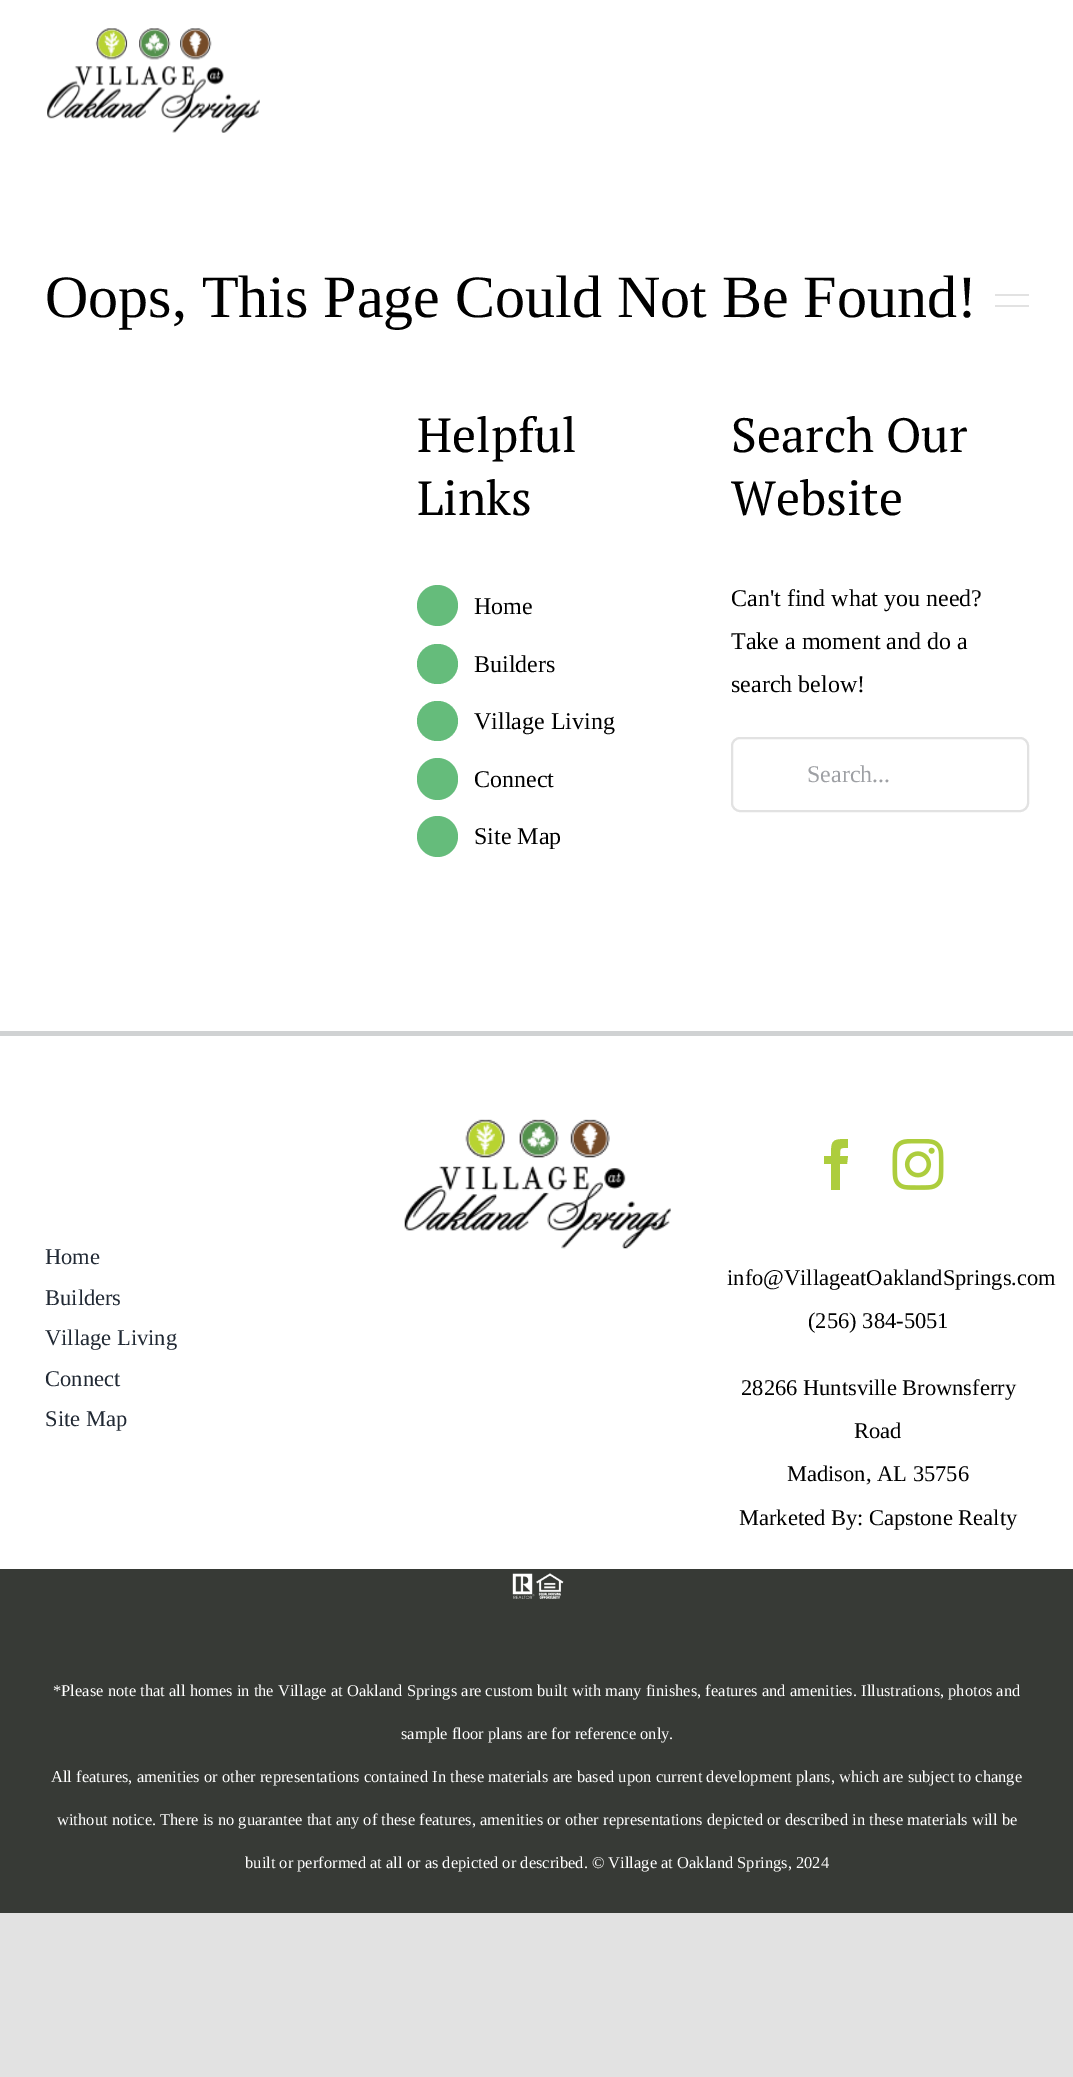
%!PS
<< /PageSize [1073 2077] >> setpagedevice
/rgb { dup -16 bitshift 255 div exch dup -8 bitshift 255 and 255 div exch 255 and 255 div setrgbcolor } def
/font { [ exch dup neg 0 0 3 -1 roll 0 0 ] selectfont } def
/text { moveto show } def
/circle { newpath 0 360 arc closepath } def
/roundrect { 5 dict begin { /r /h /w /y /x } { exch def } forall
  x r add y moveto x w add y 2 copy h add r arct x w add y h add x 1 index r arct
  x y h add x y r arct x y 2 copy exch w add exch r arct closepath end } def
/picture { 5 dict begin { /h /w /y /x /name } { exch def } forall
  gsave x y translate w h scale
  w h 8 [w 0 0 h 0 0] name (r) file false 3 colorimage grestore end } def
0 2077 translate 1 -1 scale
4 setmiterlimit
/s1 { /LiberationSerif-Regular 60 font 16#000000 rgb } def
/s2 { /PTSerif-Regular 48 font 16#000000 rgb } def
/s3 { /LiberationSerif-Regular 24 font 16#000000 rgb } def
/s4 { /LiberationSerif-Regular 24 font 16#9EA0A4 rgb } def
/s5 { /LiberationSerif-Regular 22.5 font 16#212934 rgb } def
/s6 { /LiberationSerif-Regular 22.5 font 16#000000 rgb } def
/s7 { /LiberationSerif-Regular 16.5 font 16#FFFFFF rgb } def
16#E2E2E2 rgb
0 0 1073 2077 rectfill
16#FFFFFF rgb
0 0 1073 1569 rectfill
(pic1.raw) 47 28 213 105 picture
s1
(Oops, This Page Could Not Be Found!) 45 317 text
16#E2E2E2 rgb
995 294 34 2 rectfill
995 305 34 2 rectfill
s2
(Helpful) 417 452 text
(Links) 417 515 text
16#65BC7B rgb
437.5 605.5 20.5 circle fill
s3
(Home) 474 614 text
16#65BC7B rgb
417 644 41 40 20 roundrect fill
s3
(Builders) 474 672 text
16#65BC7B rgb
417 701 41 40 20 roundrect fill
s3
(Village Living) 474 729 text
16#65BC7B rgb
417 758 41 42 20.5 roundrect fill
s3
(Connect) 474 787 text
16#65BC7B rgb
437.5 836.5 20.5 circle fill
s3
(Site Map) 474 844 text
s2
(Search Our) 731 452 text
(Website) 731 515 text
s3
(Can't find what you need?) 731 606 text
(Take a moment and do a) 731 649 text
(search below!) 731 692 text
16#E2E2E2 rgb
2 setlinewidth
732 738 296 73 8 roundrect stroke
s4
(Search...) 807 782 text
16#D0D2D3 rgb
0 1031 1073 5 rectfill
(pic2.raw) 404 1119 267 130 picture
s5
(Home) 45 1264 text
(Builders) 45 1305 text
(Village Living) 45 1345 text
(Connect) 45 1386 text
(Site Map) 45 1426 text
16#ADCD3D rgb
840 1190 moveto 831 1190 lineto 831 1164 lineto 824 1164 lineto 824 1156 lineto 831 1156 lineto 831 1140 832 1139 848 1139 curveto 848 1148 lineto 840 1148 840 1147 840 1156 curveto 848 1156 lineto 847 1164 lineto 840 1164 lineto closepath fill
(pic3.raw) 892 1139 52 51 picture
s6
(info@VillageatOaklandSprings.com) 727 1285 text
(\(256\) 384-5051) 808 1328 text
(28266 Huntsville Brownsferry) 741 1395 text
(Road) 854 1438 text
(Madison, AL 35756) 787 1481 text
(Marketed By: Capstone Realty) 739 1525 text
16#373A36 rgb
0 1569 1073 344 rectfill
(pic4.raw) 512 1573 52 26 picture
s7
(*Please note that all homes in the Village at Oakland Springs are custom built with many finishes, features and amenities. Illustrations, photos and) 53 1696 text
(sample floor plans are for reference only.) 401 1739 text
(All features, amenities or other representations contained In these materials are based upon current development plans, which are subject to change) 51 1782 text
(without notice. There is no guarantee that any of these features, amenities or other representations depicted or described in these materials will be) 57 1825 text
(built or performed at all or as depicted or described. © Village at Oakland Springs, 2024) 245 1868 text
showpage
